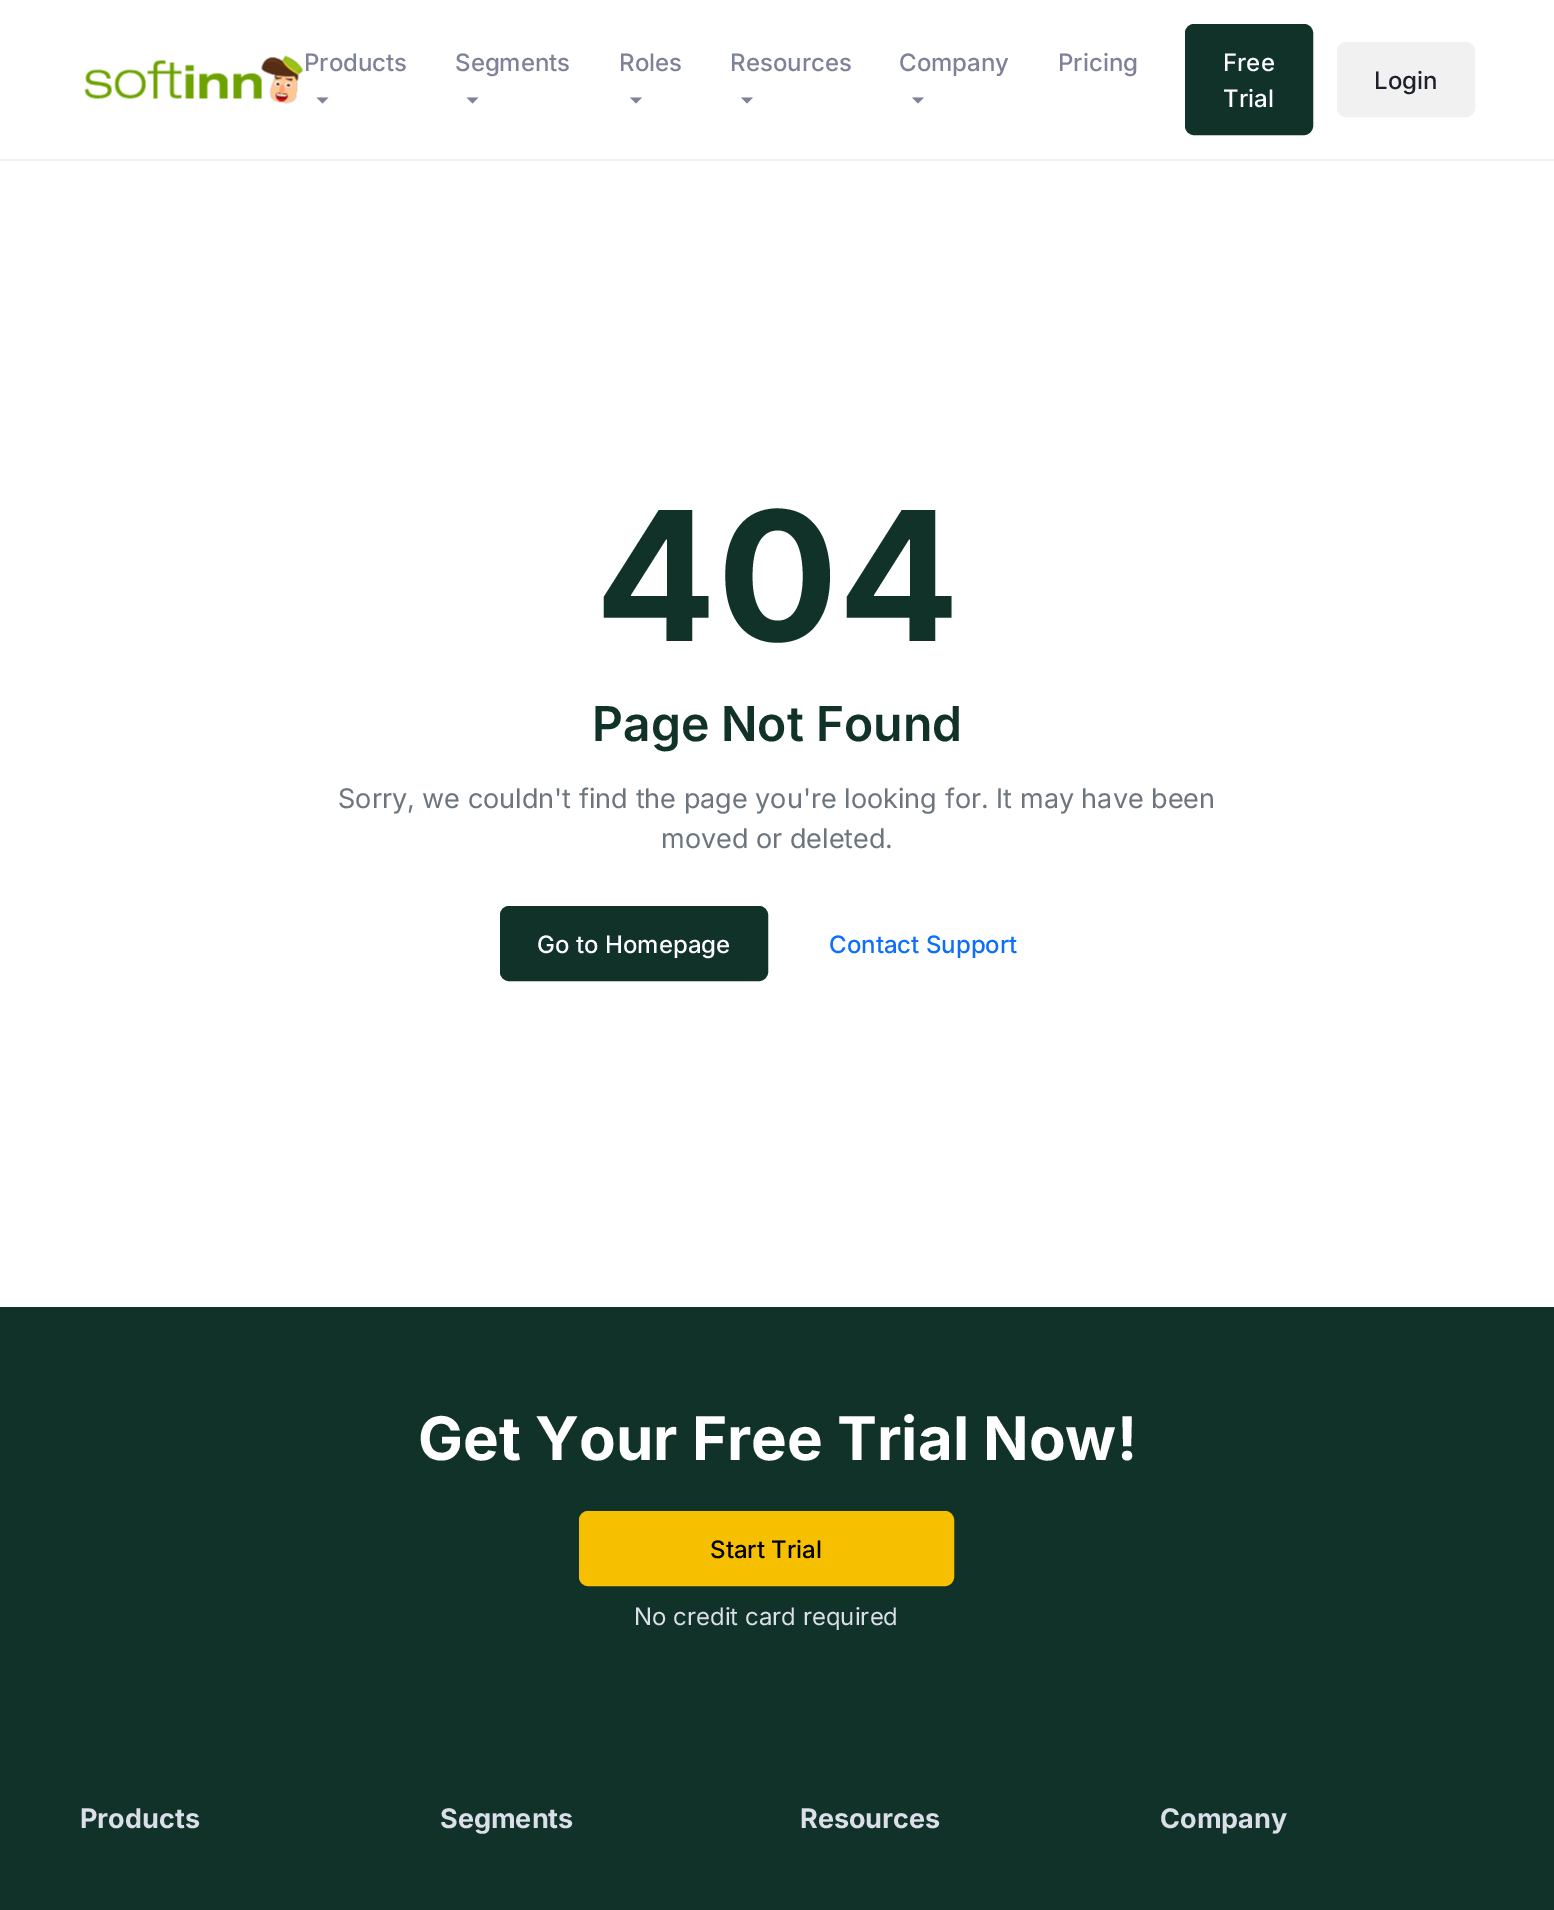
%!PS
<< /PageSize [1554 1910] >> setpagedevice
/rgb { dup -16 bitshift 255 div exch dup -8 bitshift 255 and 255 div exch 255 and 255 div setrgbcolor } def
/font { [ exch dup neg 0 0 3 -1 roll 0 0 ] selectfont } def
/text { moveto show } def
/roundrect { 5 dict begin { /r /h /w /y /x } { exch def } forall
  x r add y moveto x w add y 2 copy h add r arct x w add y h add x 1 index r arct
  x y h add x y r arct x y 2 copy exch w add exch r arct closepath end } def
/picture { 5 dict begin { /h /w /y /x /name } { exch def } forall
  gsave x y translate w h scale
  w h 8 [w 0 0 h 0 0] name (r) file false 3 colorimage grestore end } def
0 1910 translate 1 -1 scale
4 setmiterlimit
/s1 { /Inter-Medium 24 font 16#7E8299 rgb } def
/s2 { /Inter-Medium 24 font 16#FFFFFF rgb } def
/s3 { /Inter-Medium 24 font 16#1E2129 rgb } def
/s4 { /Inter-Bold 180 font 16#113228 rgb } def
/s5 { /Inter-SemiBold 48 font 16#113228 rgb } def
/s6 { /Inter-Regular 27 font 16#6C757D rgb } def
/s7 { /Inter-Medium 24 font 16#0D6EFD rgb } def
/s8 { /Inter-Bold 60 font 16#FFFFFF rgb } def
/s9 { /Inter-Medium 24 font 16#000000 rgb } def
/s10 { /Inter-Regular 24 font 16#DBDFE9 rgb } def
/s11 { /Inter-Bold 27 font 16#DBDFE9 rgb } def
16#FFFFFF rgb
0 0 1554 1910 rectfill
16#F1F1F2 rgb
0 159 1554 2 rectfill
(pic1.raw) 84 55 220 49 picture
s1
(Products) 304 71 text
316.5 97.5 moveto 328.5 97.5 lineto 322.5 103.5 lineto closepath fill
(Segments) 455 71 text
466.5 97.5 moveto 478.5 97.5 lineto 472.5 103.5 lineto closepath fill
(Roles) 619 71 text
630 97.5 moveto 642 97.5 lineto 636 103.5 lineto closepath fill
(Resources) 730 71 text
741 97.5 moveto 753 97.5 lineto 747 103.5 lineto closepath fill
(Company) 899 71 text
912 97.5 moveto 924 97.5 lineto 918 103.5 lineto closepath fill
(Pricing) 1058 71 text
16#113228 rgb
1186 25 126 109 8 roundrect gsave fill grestore
2 setlinewidth
stroke
s2
(Free) 1223 71 text
(Trial) 1223 107 text
16#F1F1F2 rgb
1338 43 136 73 8 roundrect gsave fill grestore
stroke
s3
(Login) 1374 89 text
s4
(404) 595 641 text
s5
(Page Not Found) 592 741 text
s6
(Sorry, we couldn't find the page you're looking for. It may have been) 338 808 text
(moved or deleted.) 661 848 text
16#113228 rgb
501 907 266 73 8 roundrect gsave fill grestore
stroke
s2
(Go to Homepage) 537 953 text
s7
(Contact Support) 829 953 text
16#113228 rgb
0 1307 1554 603 rectfill
s8
(Get Your Free Trial Now!) 418 1460 text
16#F6C000 rgb
580 1512 373 73 8 roundrect gsave fill grestore
stroke
s9
(Start Trial) 710 1558 text
s10
(No credit card required) 634 1625 text
s11
(Products) 80 1828 text
(Segments) 440 1828 text
(Resources) 800 1828 text
(Company) 1160 1828 text
showpage
